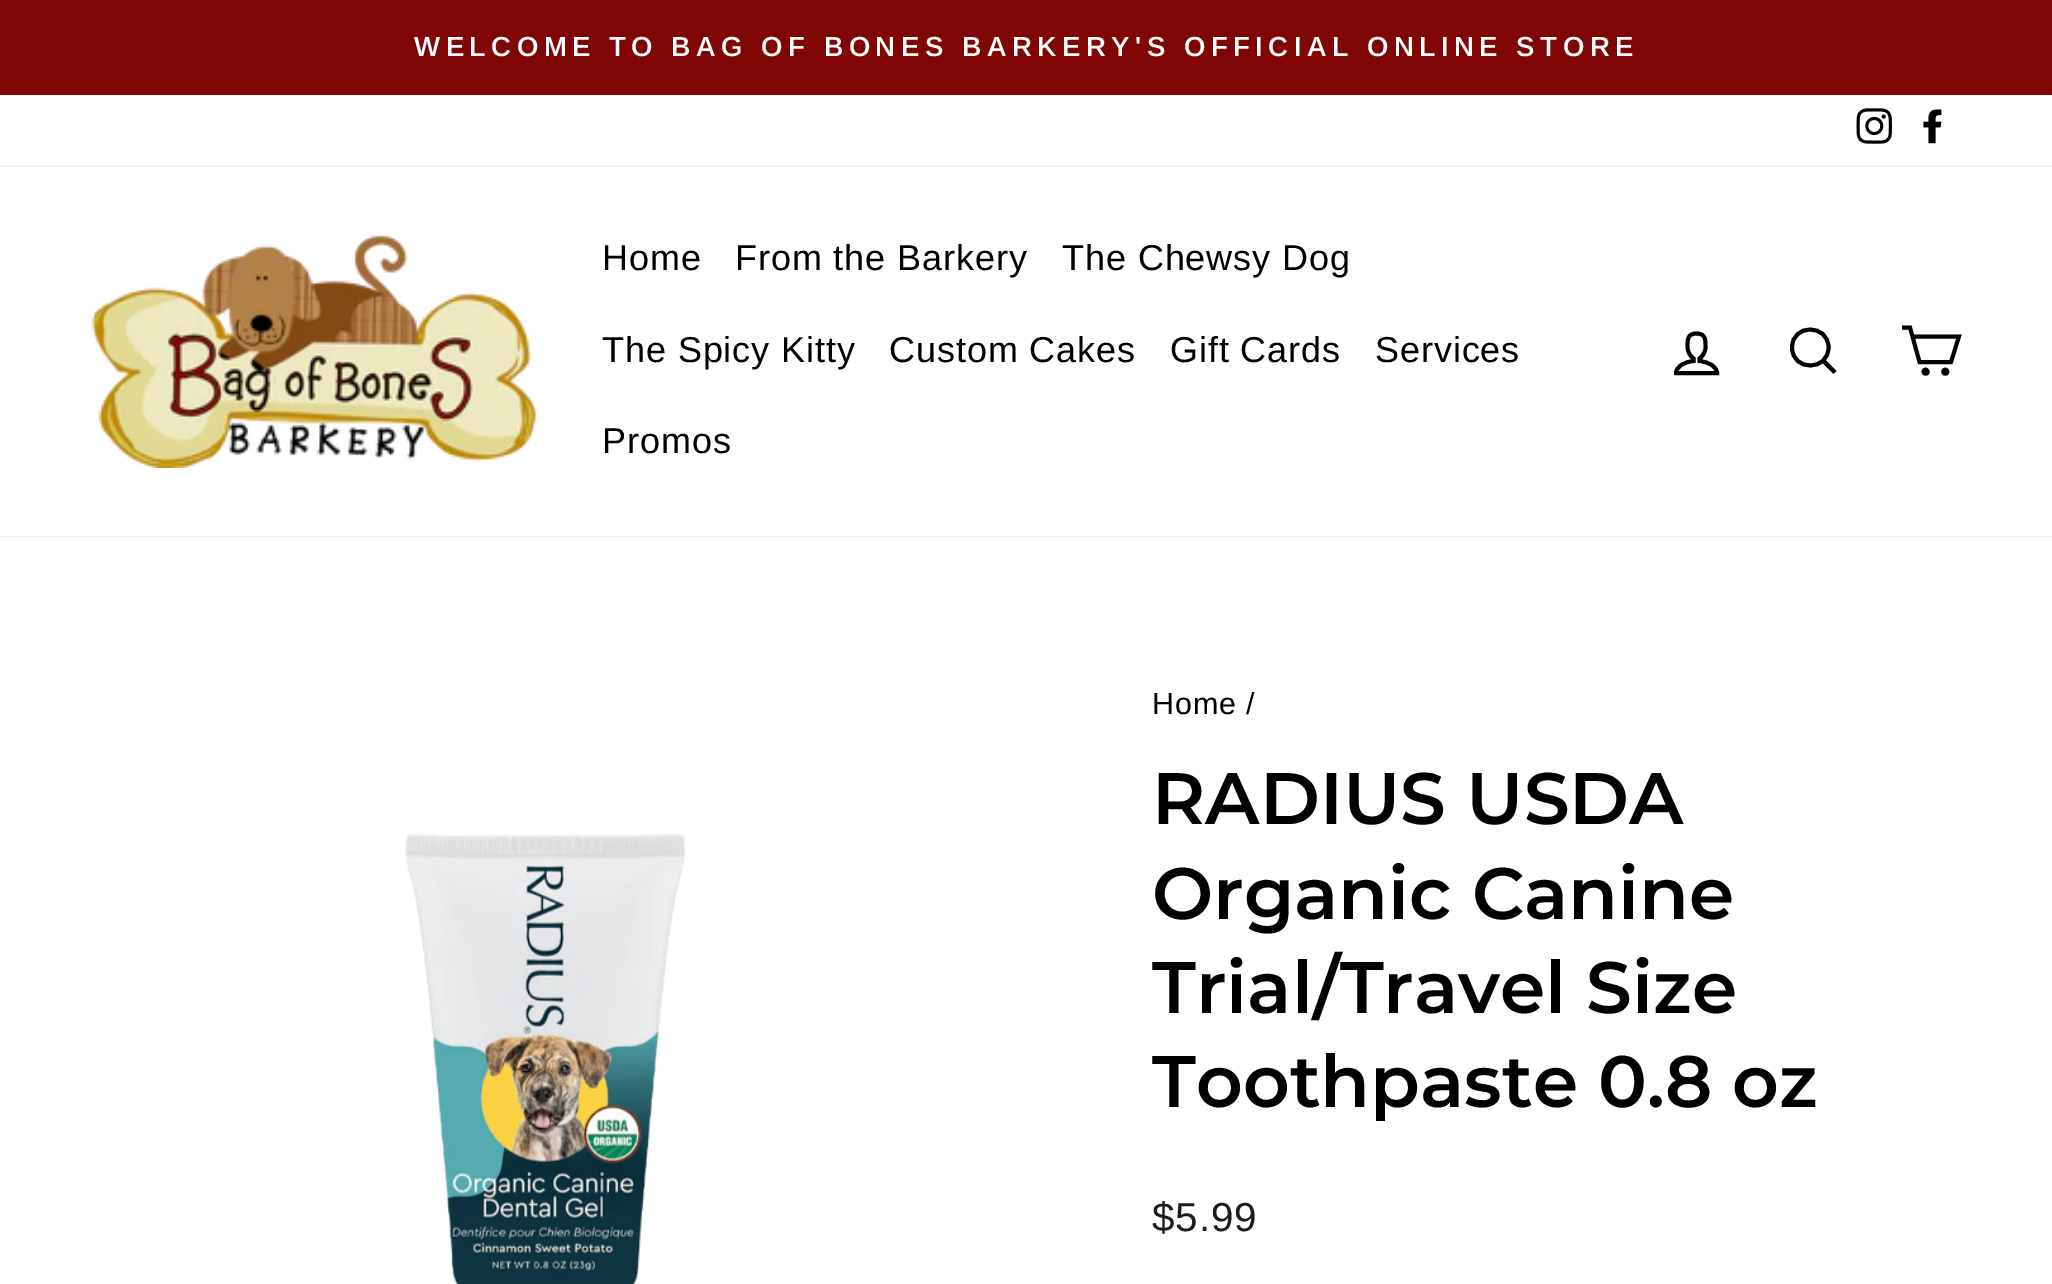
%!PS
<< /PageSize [2052 1284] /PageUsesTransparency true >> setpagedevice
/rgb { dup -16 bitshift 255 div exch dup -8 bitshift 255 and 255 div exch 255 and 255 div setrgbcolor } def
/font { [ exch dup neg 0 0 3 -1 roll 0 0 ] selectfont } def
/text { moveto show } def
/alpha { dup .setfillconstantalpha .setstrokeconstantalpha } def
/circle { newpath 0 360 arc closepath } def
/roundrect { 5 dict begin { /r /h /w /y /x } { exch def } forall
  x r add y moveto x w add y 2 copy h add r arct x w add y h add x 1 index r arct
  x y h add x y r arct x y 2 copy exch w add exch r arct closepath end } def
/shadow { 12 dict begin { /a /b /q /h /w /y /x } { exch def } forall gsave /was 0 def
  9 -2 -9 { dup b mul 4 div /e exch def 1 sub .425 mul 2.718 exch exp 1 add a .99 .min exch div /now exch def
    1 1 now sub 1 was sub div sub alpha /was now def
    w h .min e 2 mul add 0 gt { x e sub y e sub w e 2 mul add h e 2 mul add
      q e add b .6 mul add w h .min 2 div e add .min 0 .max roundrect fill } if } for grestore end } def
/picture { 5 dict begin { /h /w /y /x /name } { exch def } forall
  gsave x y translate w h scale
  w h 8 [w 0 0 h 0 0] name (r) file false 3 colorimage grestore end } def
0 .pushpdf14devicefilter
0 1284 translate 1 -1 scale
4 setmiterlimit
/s1 { /Montserrat-SemiBold 72.75 font 16#000000 rgb } def
16#FFFFFF rgb
0 0 2052 1284 rectfill
16#800606 rgb
0 0 2052 95 rectfill
/Arimo-SemiBold 27.55 font
16#FFFFFF rgb
414 56 moveto 5.5 0 (WELCOME TO BAG OF BONES BARKERY'S OFFICIAL ONLINE STORE) ashow
(pic1.raw) 1856 108 36 36 picture
(pic2.raw) 1923 109 19 35 picture
16#000000 rgb
0 167 2052 369 0 1 0.2 shadow
16#FFFFFF rgb
0 167 2052 369 rectfill
(pic3.raw) 91 234 446 234 picture
/Arimo-Regular 36 font
16#000000 rgb
602 270 moveto 0.9 0 (Home) ashow
735 270 moveto 0.9 0 (From the Barkery) ashow
1062 270 moveto 0.9 0 (The Chewsy Dog) ashow
602 362 moveto 0.9 0 (The Spicy Kitty) ashow
889 362 moveto 0.9 0 (Custom Cakes) ashow
1170 362 moveto 0.9 0 (Gift Cards) ashow
1375 362 moveto 0.9 0 (Services) ashow
602 453 moveto 0.9 0 (Promos) ashow
3.9 setlinewidth
1699.5 361 moveto 1699.5 358.5 lineto 1702.5 356.5 1705.5 352 1705.5 347 curveto 1705.5 339.5 1705.5 333.5 1696.5 333.5 curveto 1687.5 333.5 1687.5 339.5 1687.5 347 curveto 1687.5 352 1690.5 356.5 1693.5 358.5 curveto 1693.5 361 lineto 1683.5 362 1676 367 1676 373 curveto 1717 373 lineto 1717 367 1709.5 362 1699.5 361 curveto closepath stroke
1828.5 347.5 moveto 1828.5 371.5 1792 371.5 1792 347.5 curveto 1792 323.5 1828.5 323.5 1828.5 347.5 curveto closepath 1835 372.5 moveto 1823.5 361 lineto stroke
1913 336.5 moveto 1959 336.5 lineto 1951 362 lineto 1919.5 362 lineto 1910 327.5 lineto 1902 327.5 lineto stroke
1925.6 371.7 2 circle stroke
1945.3 371.7 2 circle stroke
(pic4.raw) 405 833 281 451 picture
/Arimo-Regular 30.5 font
1152 714 moveto 0.9 0 (Home /) ashow
s1
(RADIUS USDA) 1152 824 text
(Organic Canine) 1152 919 text
(Trial/Travel Size) 1152 1013 text
(Toothpaste 0.8 oz) 1152 1107 text
/Arimo-Regular 40.5 font
16#1C1D1D rgb
1152 1231 moveto 0.9 0 ($5.99) ashow
.poppdf14devicefilter showpage
